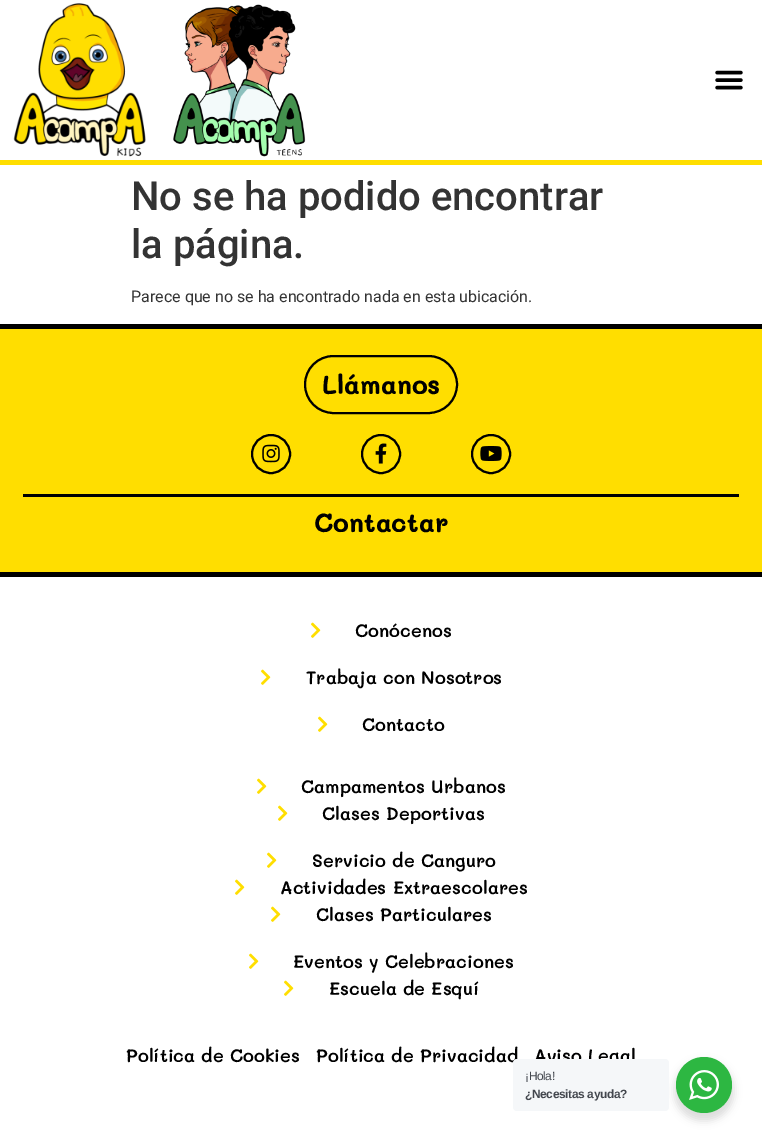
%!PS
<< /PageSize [762 1143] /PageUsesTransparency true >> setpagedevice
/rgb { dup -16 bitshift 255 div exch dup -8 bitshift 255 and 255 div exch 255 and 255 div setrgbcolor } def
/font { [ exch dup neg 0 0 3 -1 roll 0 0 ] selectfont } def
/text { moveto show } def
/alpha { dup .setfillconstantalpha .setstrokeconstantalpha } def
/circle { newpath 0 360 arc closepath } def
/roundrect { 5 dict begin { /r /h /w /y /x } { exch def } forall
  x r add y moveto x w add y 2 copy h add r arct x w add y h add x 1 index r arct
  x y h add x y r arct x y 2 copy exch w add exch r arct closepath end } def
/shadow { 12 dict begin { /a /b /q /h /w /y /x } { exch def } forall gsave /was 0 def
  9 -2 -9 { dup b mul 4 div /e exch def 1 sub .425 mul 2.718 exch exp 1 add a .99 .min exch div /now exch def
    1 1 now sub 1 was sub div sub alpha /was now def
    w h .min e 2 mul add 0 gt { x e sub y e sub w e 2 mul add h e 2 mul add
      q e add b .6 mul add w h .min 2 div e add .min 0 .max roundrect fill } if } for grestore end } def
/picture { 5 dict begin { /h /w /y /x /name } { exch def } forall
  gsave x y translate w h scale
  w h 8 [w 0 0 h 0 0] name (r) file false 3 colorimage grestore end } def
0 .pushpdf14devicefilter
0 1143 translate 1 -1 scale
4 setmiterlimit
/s1 { /Roboto-Medium 40 font 16#333333 rgb } def
/s2 { /Roboto-Regular 16 font 16#333333 rgb } def
/s3 { /Mali-Bold 26 font 16#000000 rgb } def
/s4 { /Mali-SemiBold 18 font 16#000000 rgb } def
16#FFFFFF rgb
0 0 762 1143 rectfill
16#FFDE00 rgb
0 160 762 5 rectfill
(pic1.raw) 13 3 133 154 picture
(pic2.raw) 173 4 133 153 picture
(pic3.raw) 715 70 28 20 picture
s1
(No se ha podido encontrar) 131 210 text
(la página.) 131 258 text
s2
(Parece que no se ha encontrado nada en esta ubicación.) 131 302 text
16#FFDE00 rgb
0 329 762 243 rectfill
16#000000 rgb
0 324 762 5 rectfill
0 572 762 5 rectfill
2 setlinewidth
305 356 152 57 28.5 roundrect stroke
s3
(Llámanos) 322 394 text
271 454 19 circle stroke
(pic4.raw) 262 444 18 19 picture
381 454 19 circle stroke
(pic5.raw) 375 443 12 21 picture
491 454 19 circle stroke
(pic6.raw) 480 446 22 15 picture
23 494 716 3 rectfill
(Contactar) 314 532 text
(pic7.raw) 311 622 10 16 picture
s4
(Conócenos) 355 637 text
(pic7.raw) 261 669 10 16 picture
(Trabaja con Nosotros) 306 684 text
(pic7.raw) 318 716 10 16 picture
(Contacto) 362 731 text
(pic7.raw) 257 778 10 16 picture
(Campamentos Urbanos) 301 793 text
(pic7.raw) 278 805 10 16 picture
(Clases Deportivas) 322 820 text
(pic7.raw) 267 852 10 16 picture
(Servicio de Canguro) 312 867 text
(pic7.raw) 235 879 10 16 picture
(Actividades Extraescolares) 280 894 text
(pic7.raw) 271 906 10 16 picture
(Clases Particulares) 316 921 text
(pic7.raw) 249 953 10 16 picture
(Eventos y Celebraciones) 293 968 text
(pic7.raw) 284 980 10 16 picture
(Escuela de Esquí) 329 995 text
(Política de Cookies) 126 1062 text
(Política de Privacidad) 316 1062 text
(Aviso Legal) 534 1062 text
674 1061 60 60 30 4 0.14 shadow
16#F5F7F9 rgb
513 1059 156 52 4 roundrect fill
/LiberationSans-Regular 12 font
16#43474E rgb
525 1080 moveto -0.4 0 (¡Hola!) ashow
/LiberationSans-Bold 12 font
525 1098 moveto -0.4 0 (¿Necesitas ayuda?) ashow
16#2DB742 rgb
704 1085 28 circle fill
(pic8.raw) 689 1070 30 30 picture
.poppdf14devicefilter showpage
